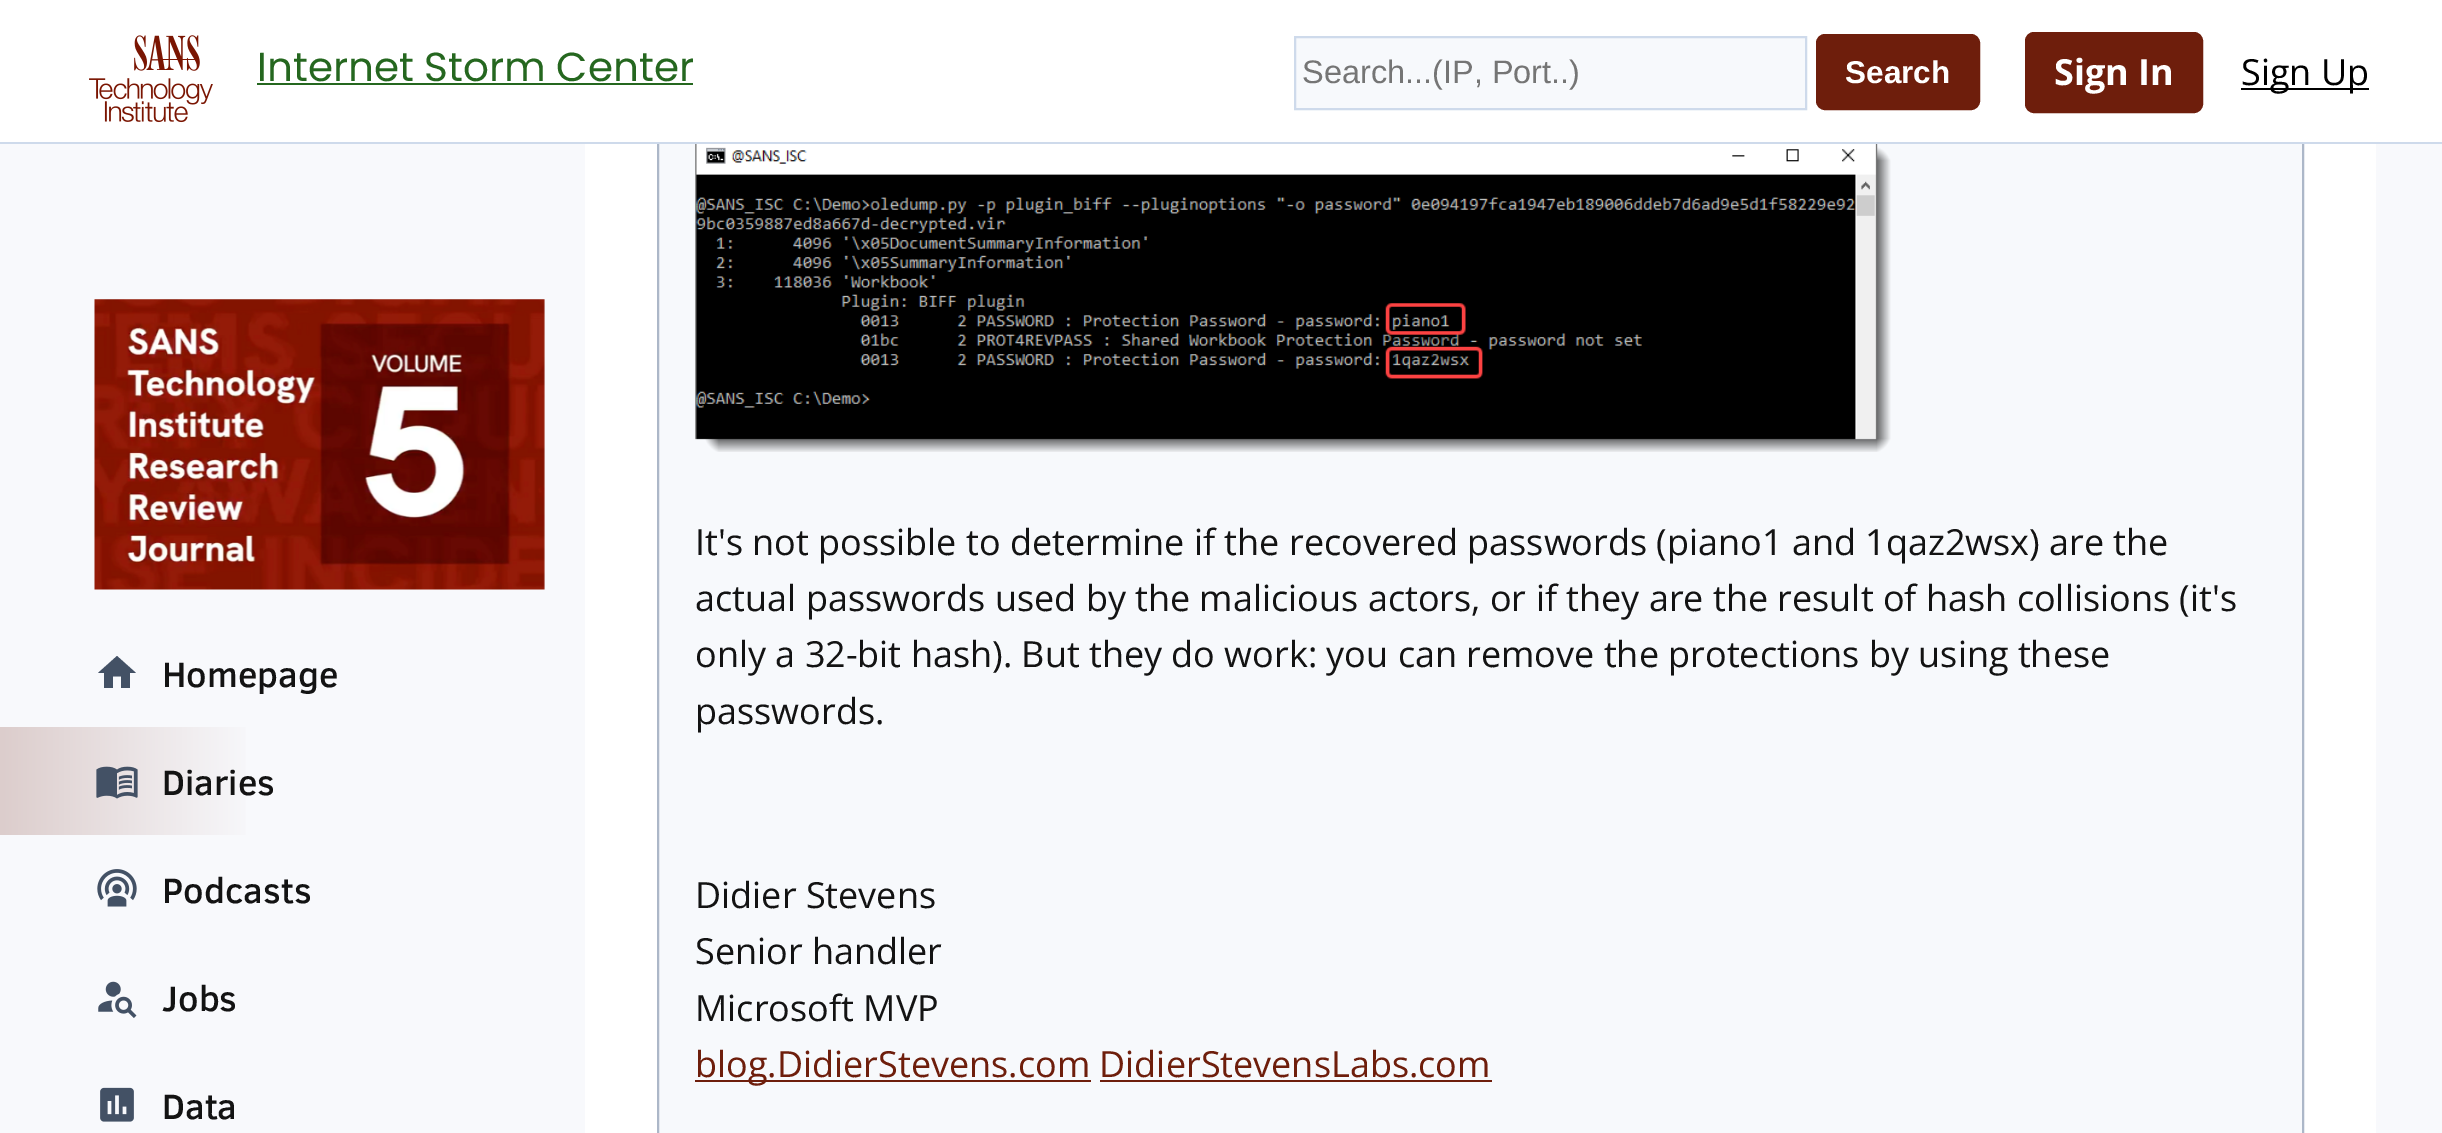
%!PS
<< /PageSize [2442 1133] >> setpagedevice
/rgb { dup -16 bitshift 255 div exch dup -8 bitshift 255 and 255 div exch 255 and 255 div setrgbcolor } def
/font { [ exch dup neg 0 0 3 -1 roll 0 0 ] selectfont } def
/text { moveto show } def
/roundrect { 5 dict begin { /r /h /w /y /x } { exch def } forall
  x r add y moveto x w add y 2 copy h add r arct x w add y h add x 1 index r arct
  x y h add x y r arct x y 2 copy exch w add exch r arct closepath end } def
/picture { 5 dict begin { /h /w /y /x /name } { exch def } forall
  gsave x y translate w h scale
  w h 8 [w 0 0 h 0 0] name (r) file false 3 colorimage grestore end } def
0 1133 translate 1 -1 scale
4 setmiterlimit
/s1 { /Poppins-Regular 40.5 font 16#25671F rgb } def
/s2 { /LiberationSans-Regular 32.5 font 16#757575 rgb } def
/s3 { /LiberationSans-Bold 31.5 font 16#FFFFFF rgb } def
/s4 { /OpenSans-Bold 36 font 16#FFFFFF rgb } def
/s5 { /OpenSans-Regular 36 font 16#000000 rgb } def
/s6 { /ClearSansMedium-Medium 36 font 16#131313 rgb } def
/s7 { /OpenSans-Regular 36 font 16#131313 rgb } def
/s8 { /OpenSans-Regular 36 font 16#6E1E0C rgb } def
16#F8F9FC rgb
0 0 2442 1133 rectfill
16#FFFFFF rgb
585 144 1791 989 rectfill
16#F7F9FC rgb
659 144 1643 989 rectfill
16#ACB7C8 rgb
2 setlinewidth
658 -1 1645 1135 rectstroke
16#FFFFFF rgb
0 0 2442 142 rectfill
16#CEDAEB rgb
0 142 2442 2 rectfill
(pic1.raw) 89 35 124 88 picture
s1
(Internet Storm Center) 257 81 text
257 83 436 2 rectfill
16#F7F9FC rgb
1295 37 moveto 1806 37 lineto 1806 109 lineto 1295 109 lineto closepath gsave fill grestore
16#CEDAEB rgb
stroke
s2
(Search...\(IP, Port..\)) 1302 83 text
16#6E1E0C rgb
1817 35 162 74 8 roundrect gsave fill grestore
stroke
s3
(Search) 1845 83 text
16#6E1E0C rgb
2026 33 176 79 8 roundrect gsave fill grestore
stroke
s4
(Sign In) 2054 85 text
16#000000 rgb
2241 88 128 2 rectfill
s5
(Sign Up) 2241 85 text
(pic2.raw) 94 299 451 291 picture
16#435165 rgb
113 688 moveto 113 676.5 lineto 121 676.5 lineto 121 688 lineto 130 688 lineto 130 673 lineto 136 673 lineto 117 656 lineto 98 673 lineto 104 673 lineto 104 688 lineto closepath fill
s6
(Homepage) 162 687 text
gsave 0 727 moveto 246 727 lineto 246 835 lineto 0 835 lineto closepath clip newpath
<< /ShadingType 2 /ColorSpace /DeviceRGB /Coords [0 781 518 781] /Extend [true true] /Function << /FunctionType 3 /Domain [0 1] /Functions [<< /FunctionType 2 /Domain [0 1] /C0 [0.863 0.804 0.8] /C1 [0.973 0.976 0.988] /N 1 >> << /FunctionType 2 /Domain [0 1] /C0 [0.973 0.976 0.988] /C1 [0.973 0.976 0.988] /N 1 >>] /Bounds [0.5] /Encode [0 1 0 1] >> >> shfill grestore
(pic3.raw) 96 766 42 33 picture
(Diaries) 162 795 text
(pic4.raw) 97 869 40 38 picture
(Podcasts) 162 903 text
(pic5.raw) 98 981 39 37 picture
(Jobs) 162 1011 text
(pic6.raw) 100 1087 34 35 picture
(Data) 162 1119 text
(pic7.raw) 695 144 1196 308 picture
s7
(It's not possible to determine if the recovered passwords \(piano1 and 1qaz2wsx\) are the) 695 555 text
(actual passwords used by the malicious actors, or if they are the result of hash collisions \(it's) 695 611 text
(only a 32-bit hash\). But they do work: you can remove the protections by using these) 695 667 text
(passwords.) 695 724 text
(Didier Stevens) 695 908 text
(Senior handler) 695 964 text
(Microsoft MVP) 695 1021 text
16#6E1E0C rgb
695 1080 396 2 rectfill
(blog.DidierStevens.com DidierStevensLabs.com) 695 1077 text
1100 1080 392 2 rectfill
showpage
